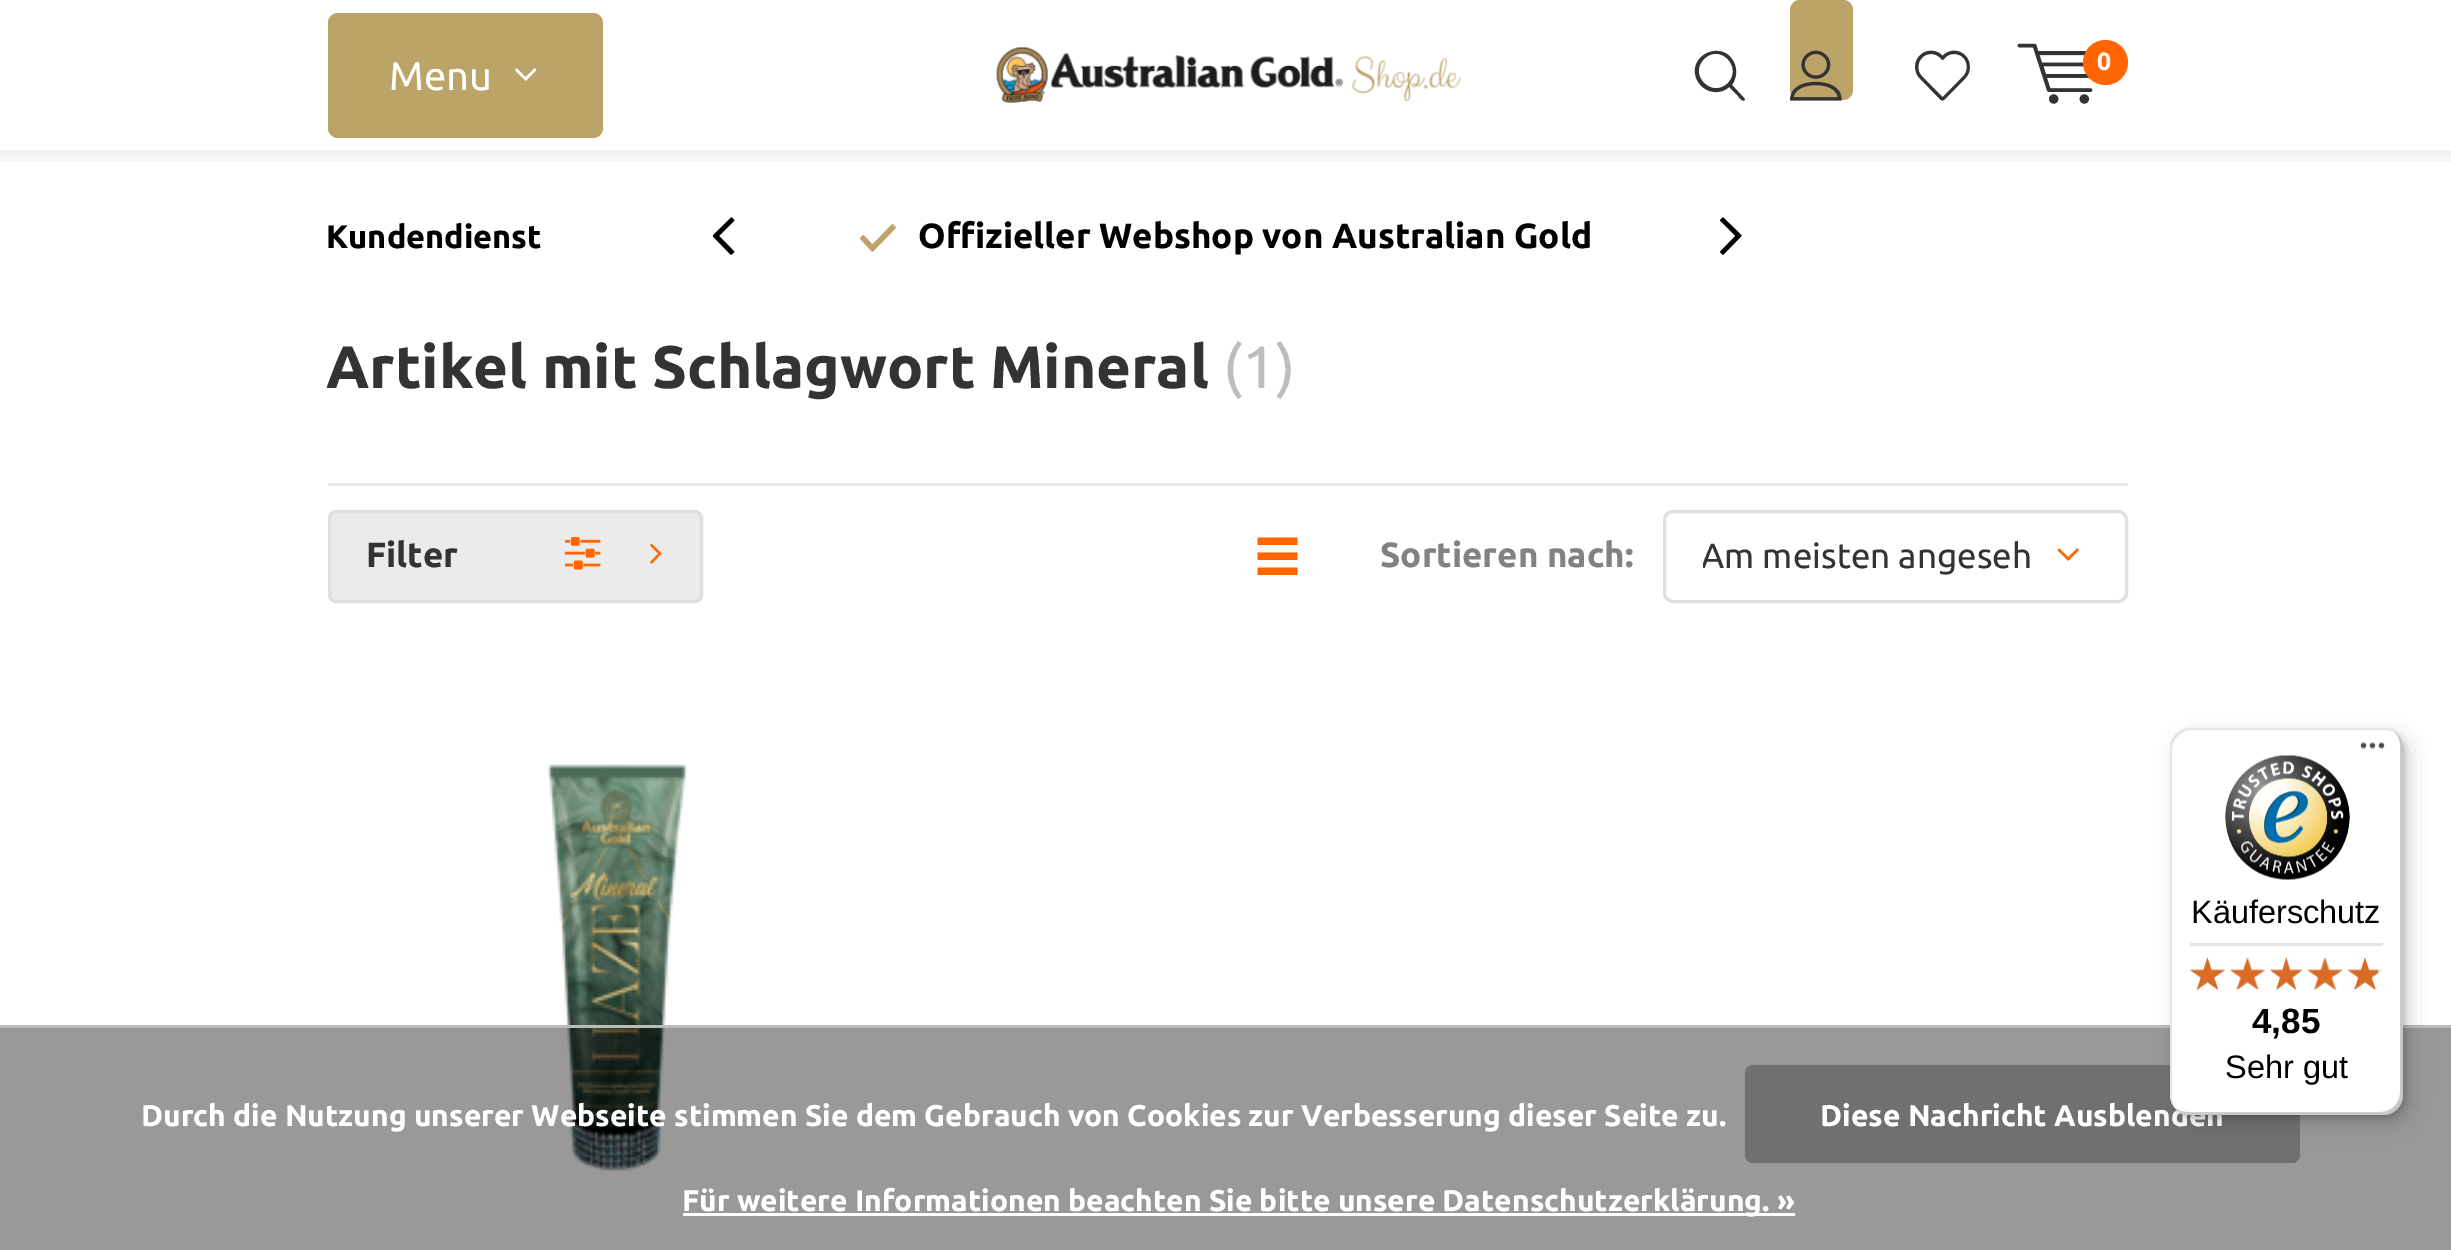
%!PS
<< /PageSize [2451 1250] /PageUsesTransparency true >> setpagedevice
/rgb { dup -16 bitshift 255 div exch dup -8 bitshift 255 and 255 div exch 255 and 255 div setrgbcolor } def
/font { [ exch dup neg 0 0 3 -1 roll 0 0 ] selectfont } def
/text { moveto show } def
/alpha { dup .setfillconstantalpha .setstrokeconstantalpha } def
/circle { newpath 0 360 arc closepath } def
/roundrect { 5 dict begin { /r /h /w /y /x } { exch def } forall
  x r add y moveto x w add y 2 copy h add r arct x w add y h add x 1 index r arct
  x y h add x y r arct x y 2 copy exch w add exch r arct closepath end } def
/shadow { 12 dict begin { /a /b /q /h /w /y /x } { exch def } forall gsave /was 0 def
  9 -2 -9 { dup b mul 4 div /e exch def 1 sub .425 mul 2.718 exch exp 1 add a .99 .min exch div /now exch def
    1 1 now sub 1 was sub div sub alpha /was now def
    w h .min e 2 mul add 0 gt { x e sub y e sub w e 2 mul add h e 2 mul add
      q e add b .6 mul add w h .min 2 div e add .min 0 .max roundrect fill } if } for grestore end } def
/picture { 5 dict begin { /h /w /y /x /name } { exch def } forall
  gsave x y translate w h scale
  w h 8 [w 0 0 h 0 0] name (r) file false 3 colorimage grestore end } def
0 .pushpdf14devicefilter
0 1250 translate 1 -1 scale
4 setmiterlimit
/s1 { /Ubuntu-Regular 40 font 16#FFFFFF rgb } def
/s2 { /Ubuntu-Bold 25 font 16#FFFFFF rgb } def
/s3 { /Ubuntu-Bold 32.5 font 16#000000 rgb } def
/s4 { /Ubuntu-Bold 35 font 16#000000 rgb } def
/s5 { /Ubuntu-Bold 60 font 16#333333 rgb } def
/s6 { /Ubuntu-Regular 60 font 16#BDBDBD rgb } def
/s7 { /Ubuntu-Bold 35 font 16#333333 rgb } def
/s8 { /Ubuntu-Bold 35 font 16#828282 rgb } def
/s9 { /Ubuntu-Regular 35 font 16#333333 rgb } def
/s10 { /Ubuntu-Bold 30 font 16#FFFFFF rgb } def
/s11 { /LiberationSans-Regular 32.5 font 16#000000 rgb } def
/s12 { /LiberationSans-Bold 35 font 16#000000 rgb } def
16#FFFFFF rgb
0 0 2451 1250 rectfill
gsave
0 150 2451 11 rectclip
16#000000 rgb
-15 10 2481 150 0 5 0.05 shadow
grestore
(pic1.raw) 996 47 465 56 picture
16#BCA468 rgb
328 13 275 125 10 roundrect fill
s1
(Menu) 389 90 text
(pic2.raw) 515 68 22 13 picture
16#333333 rgb
1744 98 moveto 1732 85 lineto 1739 75 1737 61 1727 54 curveto 1713 45 1693 57 1695 73 curveto 1697 90 1717 98 1729 87 curveto 1738 96 lineto 1740 99 1744 103 1745 99 curveto closepath 1728 83 moveto 1712 99 1688 75 1704 59 curveto 1720 43 1743 67 1728 83 curveto closepath fill
16#BCA468 rgb
1790 0 63 100 10 roundrect fill
(pic3.raw) 1790 50 52 51 picture
(pic4.raw) 1915 50 55 51 picture
(pic5.raw) 2017 43 76 61 picture
16#FF6602 rgb
2105.5 62.5 22.5 circle fill
s2
(0) 2097 70 text
s3
(Kundendienst) 326 248 text
(pic6.raw) 713 217 22 38 picture
(pic7.raw) 1720 217 22 38 picture
(pic8.raw) 860 224 36 28 picture
s4
(Offizieller Webshop von Australian Gold) 918 248 text
s5
(Artikel mit Schlagwort Mineral) 326 388 text
s6
(\(1\)) 1223 388 text
16#EBEBEB rgb
328 483 1800 3 rectfill
329.5 511.5 372 90 6.5 roundrect gsave fill grestore
16#E0E0E0 rgb
3 setlinewidth
stroke
s7
(Filter) 366 567 text
(pic9.raw) 565 537 36 33 picture
(pic10.raw) 650 543 12 21 picture
16#FF6602 rgb
1257.5 537.5 moveto 1297.5 537.5 lineto 1297.5 545 lineto 1257.5 545 lineto closepath 1257.5 552.5 moveto 1297.5 552.5 lineto 1297.5 560 lineto 1257.5 560 lineto closepath 1257.5 567.5 moveto 1297.5 567.5 lineto 1297.5 575 lineto 1257.5 575 lineto closepath fill
s8
(Sortieren nach:) 1380 567 text
(pic11.raw) 2057 548 22 13 picture
16#E0E0E0 rgb
1664.5 511.5 462 90 8.5 roundrect stroke
gsave
1703 535 335 40 rectclip
s9
(Am meisten angeseh) 1701 568 text
grestore
(pic12.raw) 547 764 141 407 picture
0.4 alpha
16#000000 rgb
0 1028 2451 222 rectfill
1 alpha
16#BBBBBB rgb
0 1025 2451 3 rectfill
s10
(Durch die Nutzung unserer Webseite stimmen Sie dem Gebrauch von Cookies zur Verbesserung dieser Seite zu.) 141 1126 text
16#707070 rgb
1745 1065 555 98 8 roundrect fill
s10
(Diese Nachricht Ausblenden) 1820 1126 text
683 1213 1112 3 rectfill
(Für weitere Informationen beachten Sie bitte unsere Datenschutzerklärung. ») 682 1211 text
16#000000 rgb
2178 735 232 388 20 10 0.15 shadow
2173 730 232 388 20 2.5 0.15 shadow
16#FFFFFF rgb
2170 728 233 387 20 roundrect fill
0.1 alpha
16#000000 rgb
2192 730 moveto 2385 730 lineto 2390 730 2395 732 2398 735 curveto 2395 731 2389 728 2383 728 curveto 2190 728 lineto 2179 728 2170 737 2170 748 curveto 2170 1095 lineto 2170 1100 2172 1104 2174 1108 curveto 2173 1105 2172 1101 2172 1098 curveto 2172 750 lineto 2172 739 2181 730 2192 730 curveto closepath fill
0.2 alpha
2174 1107 moveto 2178 1112 2183 1115 2190 1115 curveto 2383 1115 lineto 2394 1115 2403 1106 2403 1095 curveto 2403 748 lineto 2403 742 2400 736 2395 732 curveto 2398 736 2400 740 2400 745 curveto 2400 1092 lineto 2400 1104 2391 1112 2380 1112 curveto 2188 1112 lineto 2182 1112 2177 1110 2174 1107 curveto closepath fill
16#323232 rgb
2180 1112 moveto 2183 1114 2186 1115 2190 1115 curveto 2383 1115 lineto 2394 1115 2403 1106 2403 1095 curveto 2403 748 lineto 2403 742 2400 736 2396 733 curveto 2399 736 2401 741 2401 746 curveto 2401 1094 lineto 2401 1105 2392 1114 2381 1114 curveto 2188 1114 lineto 2185 1114 2182 1113 2180 1112 curveto closepath fill
0.3 alpha
16#FFFFFF rgb
2175 1108 moveto 2179 1112 2184 1115 2190 1115 curveto 2383 1115 lineto 2394 1115 2403 1106 2403 1095 curveto 2403 748 lineto 2403 742 2400 736 2396 733 curveto 2399 736 2401 741 2401 746 curveto 2401 1094 lineto 2401 1105 2392 1114 2381 1114 curveto 2189 1114 lineto 2184 1114 2179 1112 2175 1108 curveto closepath fill
1 alpha
(pic13.raw) 2360 742 25 7 picture
(pic14.raw) 2225 755 125 125 picture
s11
(Käuferschutz) 2191 923 text
16#E5E5E5 rgb
2190 943 193 3 rectfill
(pic15.raw) 2190 957 35 33 picture
(pic16.raw) 2230 958 35 32 picture
(pic17.raw) 2270 957 32 33 picture
(pic18.raw) 2308 958 34 32 picture
(pic19.raw) 2348 957 34 33 picture
(pic20.raw) 2190 957 35 33 picture
(pic21.raw) 2230 957 35 33 picture
(pic22.raw) 2270 957 32 33 picture
(pic23.raw) 2307 957 36 33 picture
(pic24.raw) 2348 957 30 33 picture
s12
(4,85) 2252 1033 text
s11
(Sehr gut) 2225 1078 text
.poppdf14devicefilter showpage
